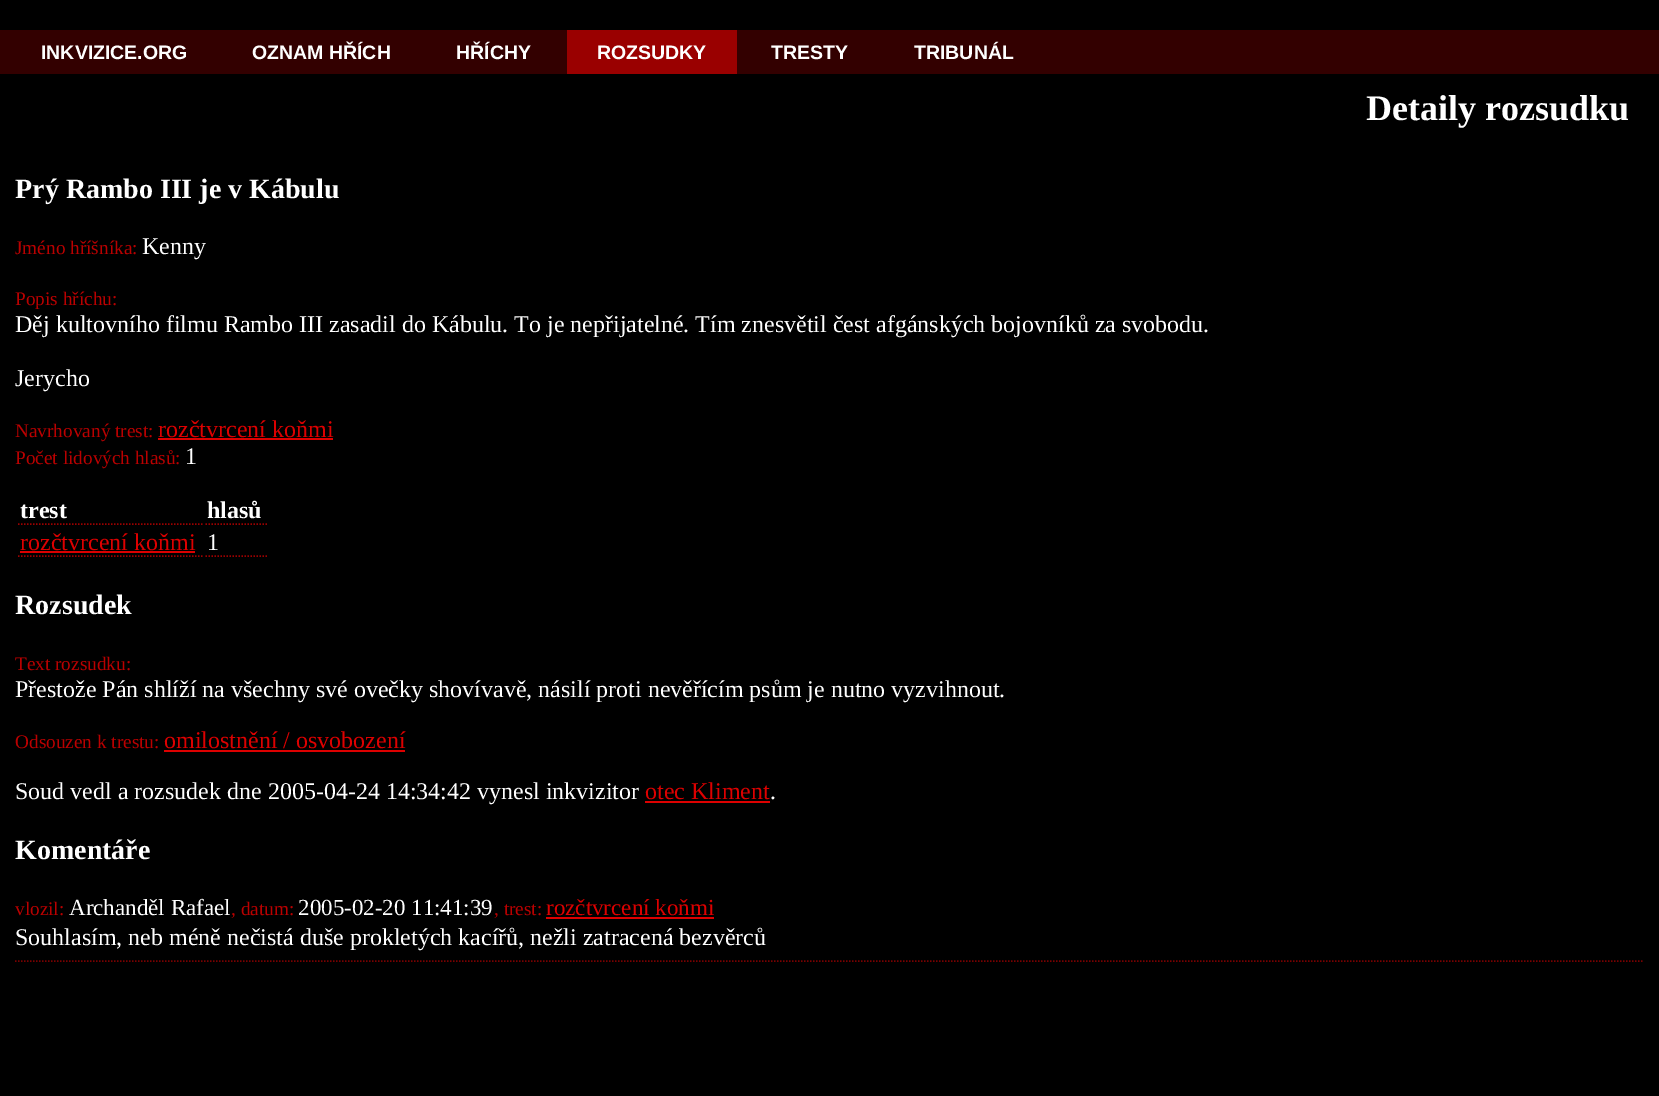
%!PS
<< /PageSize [1659 1096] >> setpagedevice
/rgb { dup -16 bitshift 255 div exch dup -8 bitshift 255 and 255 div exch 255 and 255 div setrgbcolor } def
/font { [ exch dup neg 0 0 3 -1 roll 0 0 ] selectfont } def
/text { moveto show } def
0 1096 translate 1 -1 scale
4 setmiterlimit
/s1 { /LiberationSans-Bold 19.5 font 16#FFFFFF rgb } def
/s2 { /LiberationSerif-Bold 36 font 16#FFFFFF rgb } def
/s3 { /LiberationSerif-Bold 28 font 16#FFFFFF rgb } def
/s4 { /LiberationSerif-Regular 19.25 font 16#BA0000 rgb } def
/s5 { /LiberationSerif-Regular 24 font 16#FFFFFF rgb } def
/s6 { /LiberationSerif-Regular 24 font 16#DD0000 rgb } def
/s7 { /LiberationSerif-Bold 24 font 16#FFFFFF rgb } def
/s8 { /LiberationSerif-Regular 23 font 16#FFFFFF rgb } def
/s9 { /LiberationSerif-Regular 23 font 16#DD0000 rgb } def
16#000000 rgb
0 0 1659 1096 rectfill
16#330000 rgb
0 30 1659 44 rectfill
s1
(INKVIZICE.ORG) 41 59 text
(OZNAM HŘÍCH) 252 59 text
(HŘÍCHY) 456 59 text
16#9A0000 rgb
567 30 170 44 rectfill
s1
(ROZSUDKY) 597 59 text
(TRESTY) 771 59 text
(TRIBUNÁL) 914 59 text
s2
(Detaily rozsudku) 1366 120 text
s3
(Prý Rambo III je v Kábulu) 15 198 text
s4
(Jméno hříšníka:) 15 254 text
s5
(Kenny) 142 254 text
s4
(Popis hříchu:) 15 305 text
s5
(Děj kultovního filmu Rambo III zasadil do Kábulu. To je nepřijatelné. Tím znesvětil čest afgánských bojovníků za svobodu.) 15 332 text
(Jerycho) 15 386 text
s4
(Navrhovaný trest:) 15 437 text
s6
(rozčtvrcení koňmi) 158 437 text
158 438 175 2 rectfill
s4
(Počet lidových hlasů:) 15 464 text
s5
(1) 185 464 text
16#9A0000 rgb
1.5 setlinewidth
[1.5 1.5] 0 setdash
18 524 moveto 202.5 524 lineto stroke
s7
(trest) 20 518 text
16#9A0000 rgb
205.5 524 moveto 268.5 524 lineto stroke
s7
(hlasů) 207 518 text
16#9A0000 rgb
18 556 moveto 202.5 556 lineto stroke
s6
(rozčtvrcení koňmi) 20 550 text
20 551 175 2 rectfill
16#9A0000 rgb
205.5 556 moveto 268.5 556 lineto stroke
s5
(1) 207 550 text
s3
(Rozsudek) 15 614 text
s4
(Text rozsudku:) 15 670 text
s5
(Přestože Pán shlíží na všechny své ovečky shovívavě, násilí proti nevěřícím psům je nutno vyzvihnout.) 15 697 text
s4
(Odsouzen k trestu:) 15 748 text
s6
(omilostnění / osvobození) 164 748 text
164 750 241 2 rectfill
s5
(Soud vedl a rozsudek dne 2005-04-24 14:34:42 vynesl inkvizitor) 15 799 text
s6
(otec Kliment) 645 799 text
645 801 125 2 rectfill
s5
(.) 770 799 text
s3
(Komentáře) 15 859 text
16#780000 rgb
15 961 moveto 1644 961 lineto stroke
s4
(vlozil:) 15 915 text
s8
(Archanděl Rafael) 69 915 text
s4
(, datum:) 231 915 text
s8
(2005-02-20 11:41:39) 298 915 text
s4
(, trest:) 494 915 text
s9
(rozčtvrcení koňmi) 546 915 text
546 917 168 2 rectfill
s5
(Souhlasím, neb méně nečistá duše prokletých kacířů, nežli zatracená bezvěrců) 15 945 text
showpage
